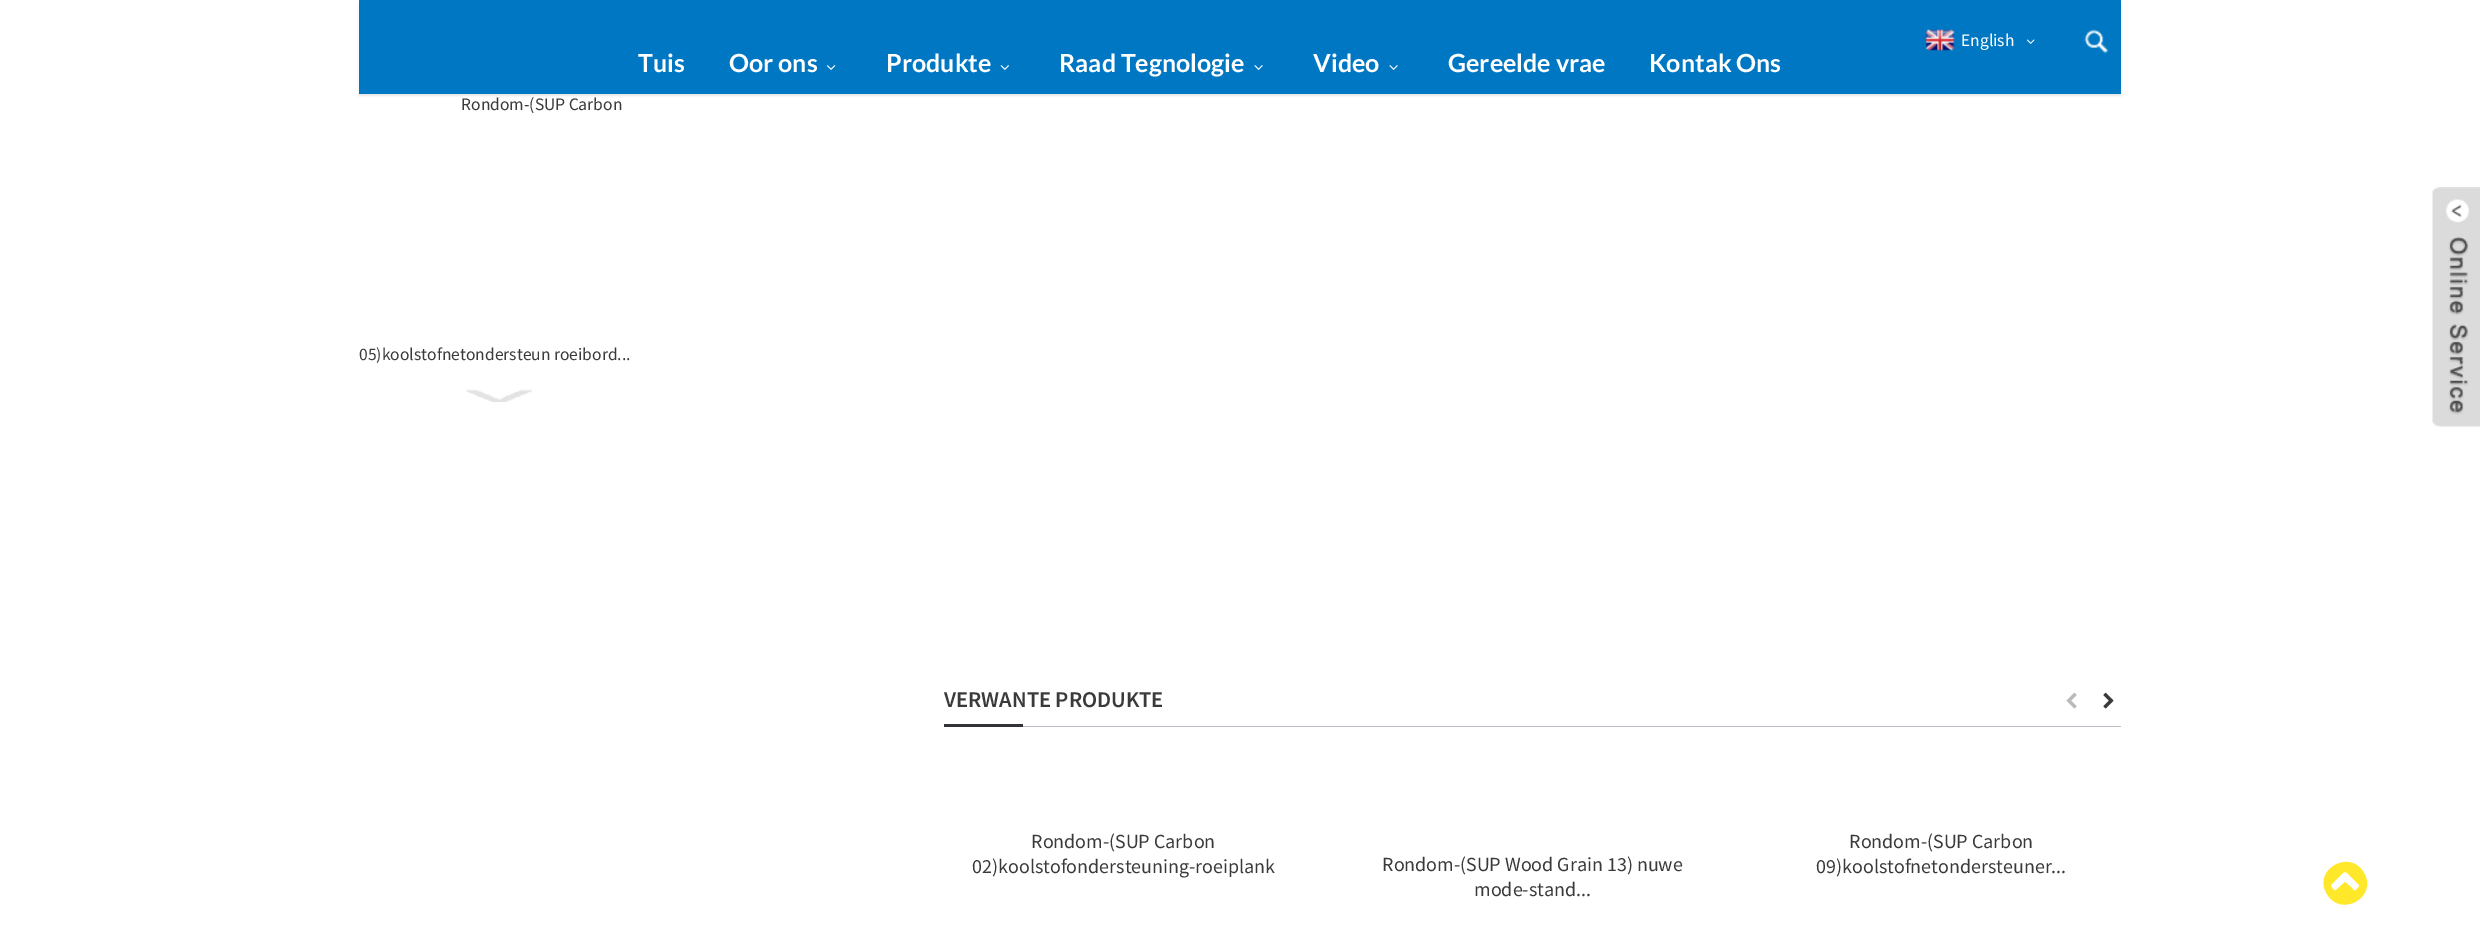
%!PS
<< /PageSize [2480 952] /PageUsesTransparency true >> setpagedevice
/rgb { dup -16 bitshift 255 div exch dup -8 bitshift 255 and 255 div exch 255 and 255 div setrgbcolor } def
/font { [ exch dup neg 0 0 3 -1 roll 0 0 ] selectfont } def
/text { moveto show } def
/alpha { dup .setfillconstantalpha .setstrokeconstantalpha } def
/roundrect { 5 dict begin { /r /h /w /y /x } { exch def } forall
  x r add y moveto x w add y 2 copy h add r arct x w add y h add x 1 index r arct
  x y h add x y r arct x y 2 copy exch w add exch r arct closepath end } def
/shadow { 12 dict begin { /a /b /q /h /w /y /x } { exch def } forall gsave /was 0 def
  9 -2 -9 { dup b mul 4 div /e exch def 1 sub .425 mul 2.718 exch exp 1 add a .99 .min exch div /now exch def
    1 1 now sub 1 was sub div sub alpha /was now def
    w h .min e 2 mul add 0 gt { x e sub y e sub w e 2 mul add h e 2 mul add
      q e add b .6 mul add w h .min 2 div e add .min 0 .max roundrect fill } if } for grestore end } def
/picture { 5 dict begin { /h /w /y /x /name } { exch def } forall
  gsave x y translate w h scale
  w h 8 [w 0 0 h 0 0] name (r) file false 3 colorimage grestore end } def
0 .pushpdf14devicefilter
0 952 translate 1 -1 scale
4 setmiterlimit
/s1 { /SourceSansPro-Regular 17.5 font 16#FFFFFF rgb } def
/s2 { /Lato-Bold 25 font 16#FFFFFF rgb } def
/s3 { /SourceSansPro-Regular 17.5 font 16#3A3A3A rgb } def
/s4 { /SourceSansPro-SemiBold 22.5 font 16#3A3A3A rgb } def
/s5 { /SourceSansPro-Regular 20 font 16#3A3A3A rgb } def
16#FFFFFF rgb
0 0 2480 952 rectfill
16#000000 rgb
359 3 1762 93 0 1 0.1 shadow
16#0077C3 rgb
359 0 1762 94 rectfill
(pic1.raw) 1926 29 29 22 picture
s1
(English) 1961 46 text
(pic2.raw) 2026 39 9 5 picture
(pic3.raw) 2084 29 25 24 picture
s2
(Tuis) 638 72 text
(Oor ons) 729 72 text
(pic4.raw) 826 65 10 5 picture
(Produkte) 886 72 text
(pic5.raw) 1000 65 9 5 picture
(Raad Tegnologie) 1059 72 text
(pic6.raw) 1254 65 9 5 picture
(Video) 1313 72 text
(pic6.raw) 1389 65 9 5 picture
(Gereelde vrae) 1448 72 text
(Kontak Ons) 1649 72 text
s3
(Rondom-\(SUP Carbon) 461 110 text
(05\)koolstofnetondersteun roeibord...) 359 360 text
(pic7.raw) 466 389 67 13 picture
16#BBBDC4 rgb
1023 726 1098 1 rectfill
s4
(VERWANTE PRODUKTE) 944 707 text
16#323237 rgb
944 724 79 3 rectfill
(pic8.raw) 2066 692 11 17 picture
(pic9.raw) 2103 692 11 17 picture
s5
(Rondom-\(SUP Carbon) 1031 848 text
(02\)koolstofondersteuning-roeiplank) 972 873 text
(Rondom-\(SUP Wood Grain 13\) nuwe) 1382 871 text
(mode-stand...) 1474 896 text
(Rondom-\(SUP Carbon) 1849 848 text
(09\)koolstofnetondersteuner...) 1816 873 text
(pic10.raw) 2432 187 48 240 picture
16#FFE729 rgb
2356 890 moveto 2361 885 2360 886 2355 881 curveto 2343 869 2347 869 2335 881 curveto 2331 885 2329 885 2333 889 curveto 2334 890 2335 891 2336 890 curveto 2345 882 lineto 2351 887 lineto 2352 888 2354 892 2356 890 curveto closepath 2364 873 moveto 2378 897 2341 918 2327 894 curveto 2312 870 2350 848 2364 873 curveto closepath fill
.poppdf14devicefilter showpage
